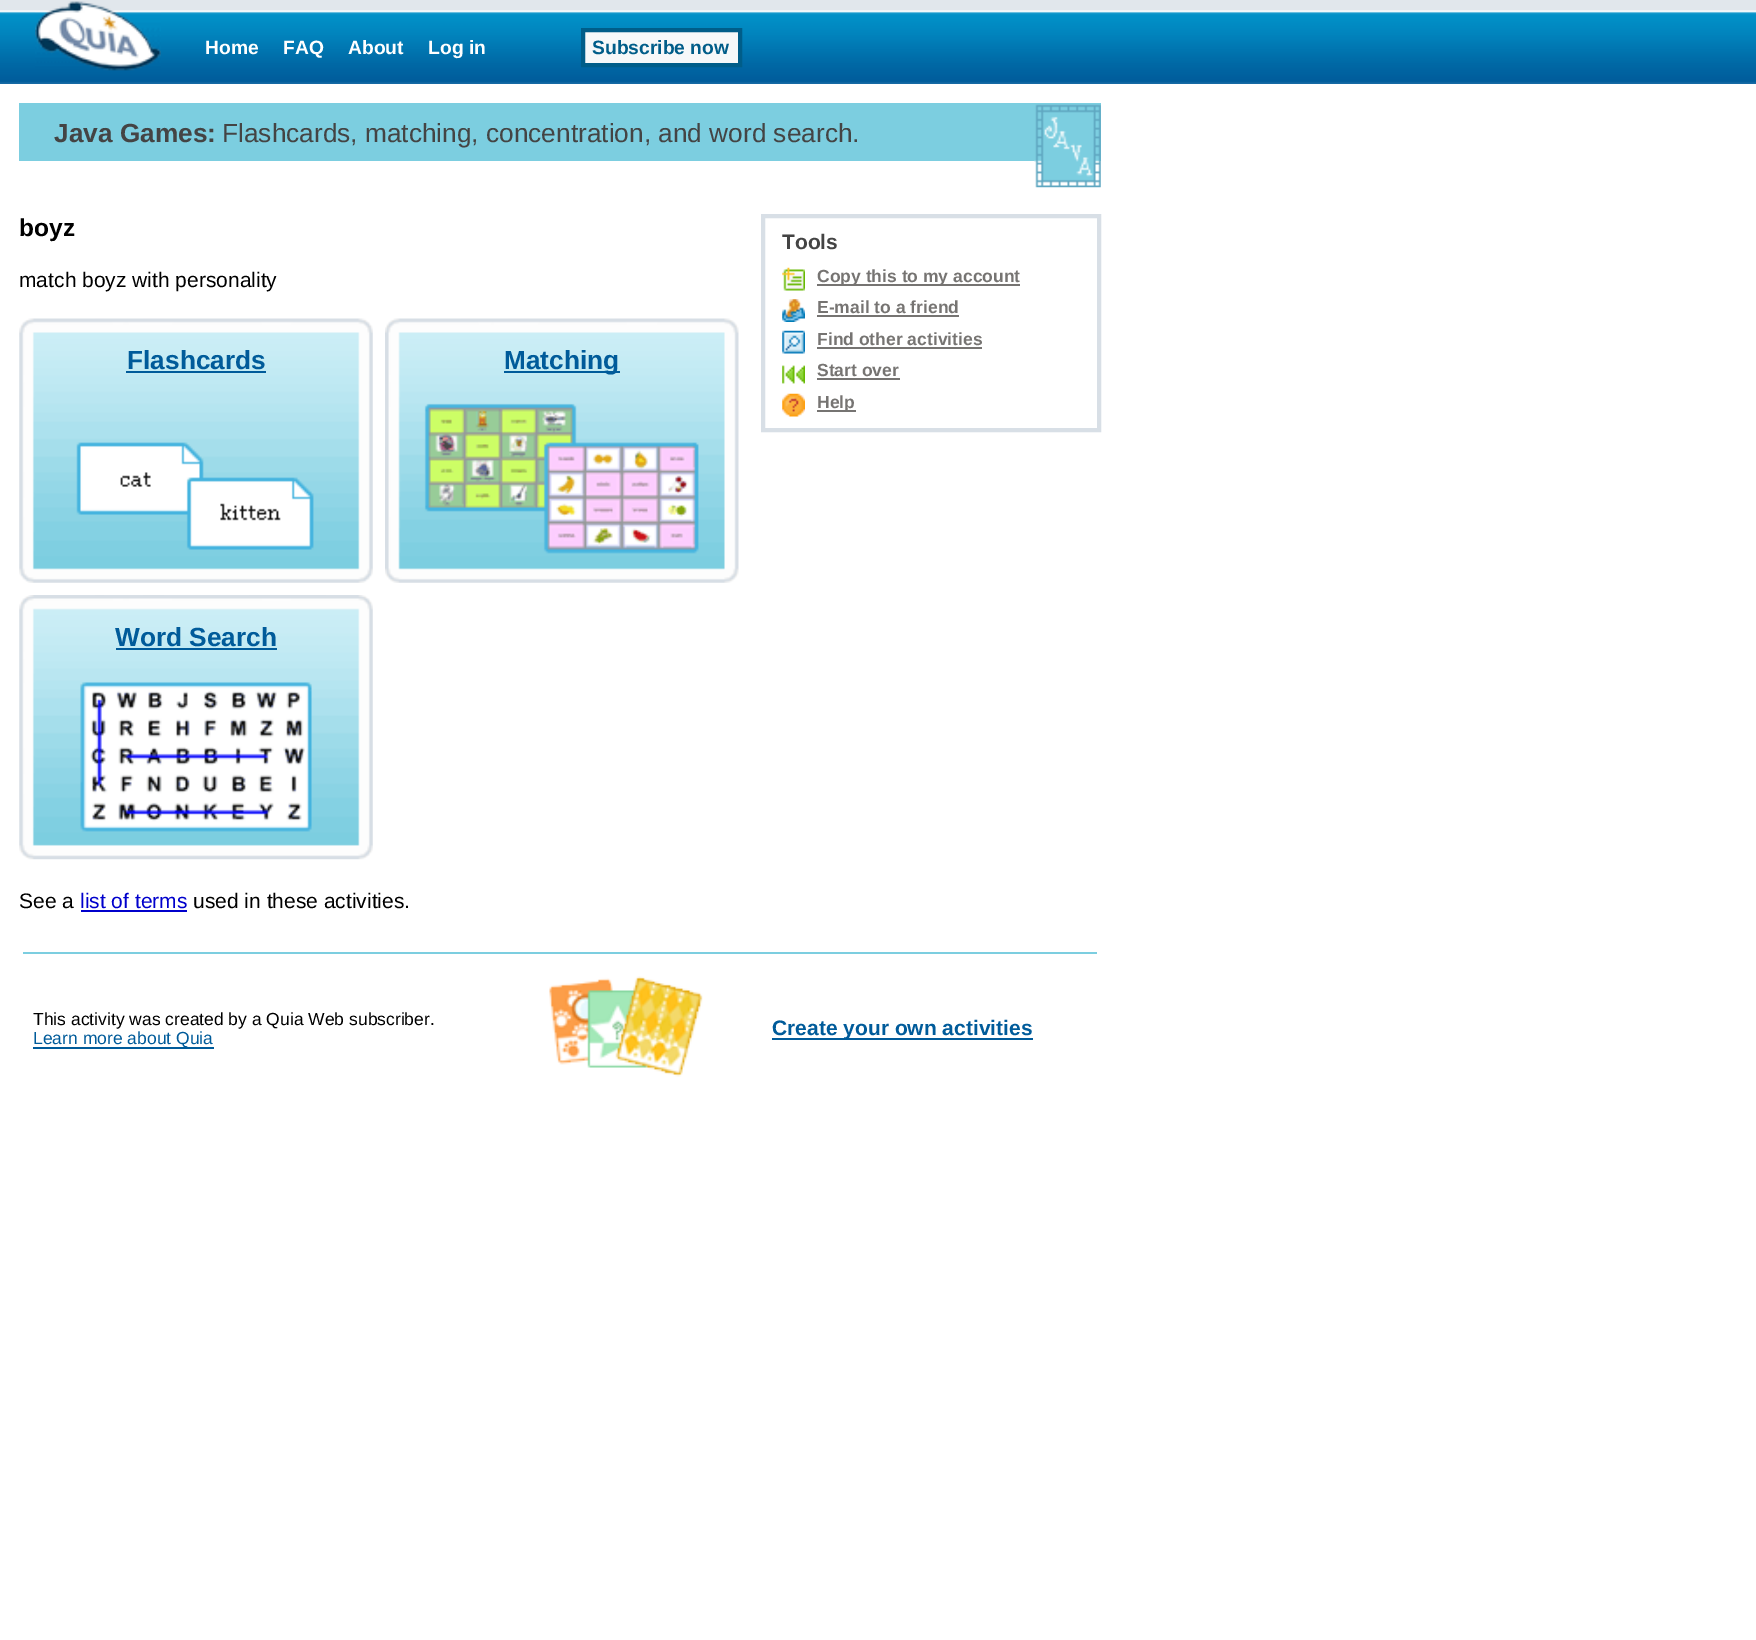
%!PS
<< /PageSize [1756 1640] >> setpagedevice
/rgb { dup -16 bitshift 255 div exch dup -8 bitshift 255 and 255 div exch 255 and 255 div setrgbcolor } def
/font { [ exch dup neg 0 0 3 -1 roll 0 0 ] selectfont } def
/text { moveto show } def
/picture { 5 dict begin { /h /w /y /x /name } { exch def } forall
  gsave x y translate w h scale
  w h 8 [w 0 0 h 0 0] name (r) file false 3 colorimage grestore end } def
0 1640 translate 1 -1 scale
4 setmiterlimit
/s1 { /LiberationSans-Bold 19.25 font 16#FFFFFF rgb } def
/s2 { /LiberationSans-Bold 19.25 font 16#005D89 rgb } def
/s3 { /LiberationSans-Bold 26.25 font 16#444444 rgb } def
/s4 { /LiberationSans-Regular 26.25 font 16#444444 rgb } def
/s5 { /LiberationSans-Bold 24.5 font 16#000000 rgb } def
/s6 { /LiberationSans-Regular 21 font 16#000000 rgb } def
/s7 { /LiberationSans-Bold 21 font 16#444444 rgb } def
/s8 { /LiberationSans-Bold 17.5 font 16#767472 rgb } def
/s9 { /LiberationSans-Bold 26.25 font 16#005B9A rgb } def
/s10 { /LiberationSans-Regular 21 font 16#0000CC rgb } def
/s11 { /LiberationSans-Regular 17.5 font 16#000000 rgb } def
/s12 { /LiberationSans-Regular 17.5 font 16#005B9A rgb } def
/s13 { /LiberationSans-Bold 21 font 16#005B9A rgb } def
16#FFFFFF rgb
0 0 1756 1640 rectfill
(pic1.raw) 0 0 1756 84 picture
(pic2.raw) 35 1 126 70 picture
s1
(Home) 205 54 text
(FAQ) 283 54 text
(About) 348 54 text
(Log in) 428 54 text
16#F6F8F9 rgb
583 30 moveto 740 30 lineto 740 65 lineto 583 65 lineto closepath gsave fill grestore
16#005D89 rgb
4 setlinewidth
stroke
(Subscribe now) 592 54 text
16#7CCEE0 rgb
19 103 1082 58 rectfill
s3
(Java Games:) 54 142 text
s4
(Flashcards, matching, concentration, and word search.) 222 142 text
(pic3.raw) 1034 104 67 84 picture
s5
(boyz) 19 236 text
s6
(match boyz with personality) 19 287 text
16#D8DFE6 rgb
763 216 336 214 rectstroke
s7
(Tools) 782 249 text
(pic4.raw) 782 267 23 24 picture
16#767472 rgb
817 284 203 2 rectfill
s8
(Copy this to my account) 817 282 text
(pic5.raw) 782 299 23 23 picture
(E-mail to a friend) 817 313 text
817 315 142 2 rectfill
(pic6.raw) 782 330 23 24 picture
(Find other activities) 817 345 text
817 347 165 2 rectfill
(pic7.raw) 782 365 23 19 picture
(Start over) 817 376 text
817 378 83 2 rectfill
(pic8.raw) 782 393 23 24 picture
817 410 39 2 rectfill
(Help) 817 408 text
(pic9.raw) 19 318 354 265 picture
s9
(Flashcards) 127 369 text
126 371 140 2 rectfill
(pic10.raw) 385 318 354 265 picture
504 371 116 2 rectfill
(Matching) 504 369 text
(pic11.raw) 19 595 354 265 picture
(Word Search) 115 646 text
116 648 161 2 rectfill
s6
(See a) 19 908 text
s10
(list of terms) 80 908 text
81 910 106 2 rectfill
s6
(used in these activities.) 193 908 text
16#7CCEE0 rgb
23 952 1074 2 rectfill
s11
(This activity was created by a Quia Web subscriber.) 33 1025 text
16#005B9A rgb
33 1047 181 2 rectfill
(Learn more about Quia) 33 1044 text
(pic12.raw) 549 976 154 101 picture
772 1038 261 2 rectfill
s13
(Create your own activities) 772 1035 text
showpage
